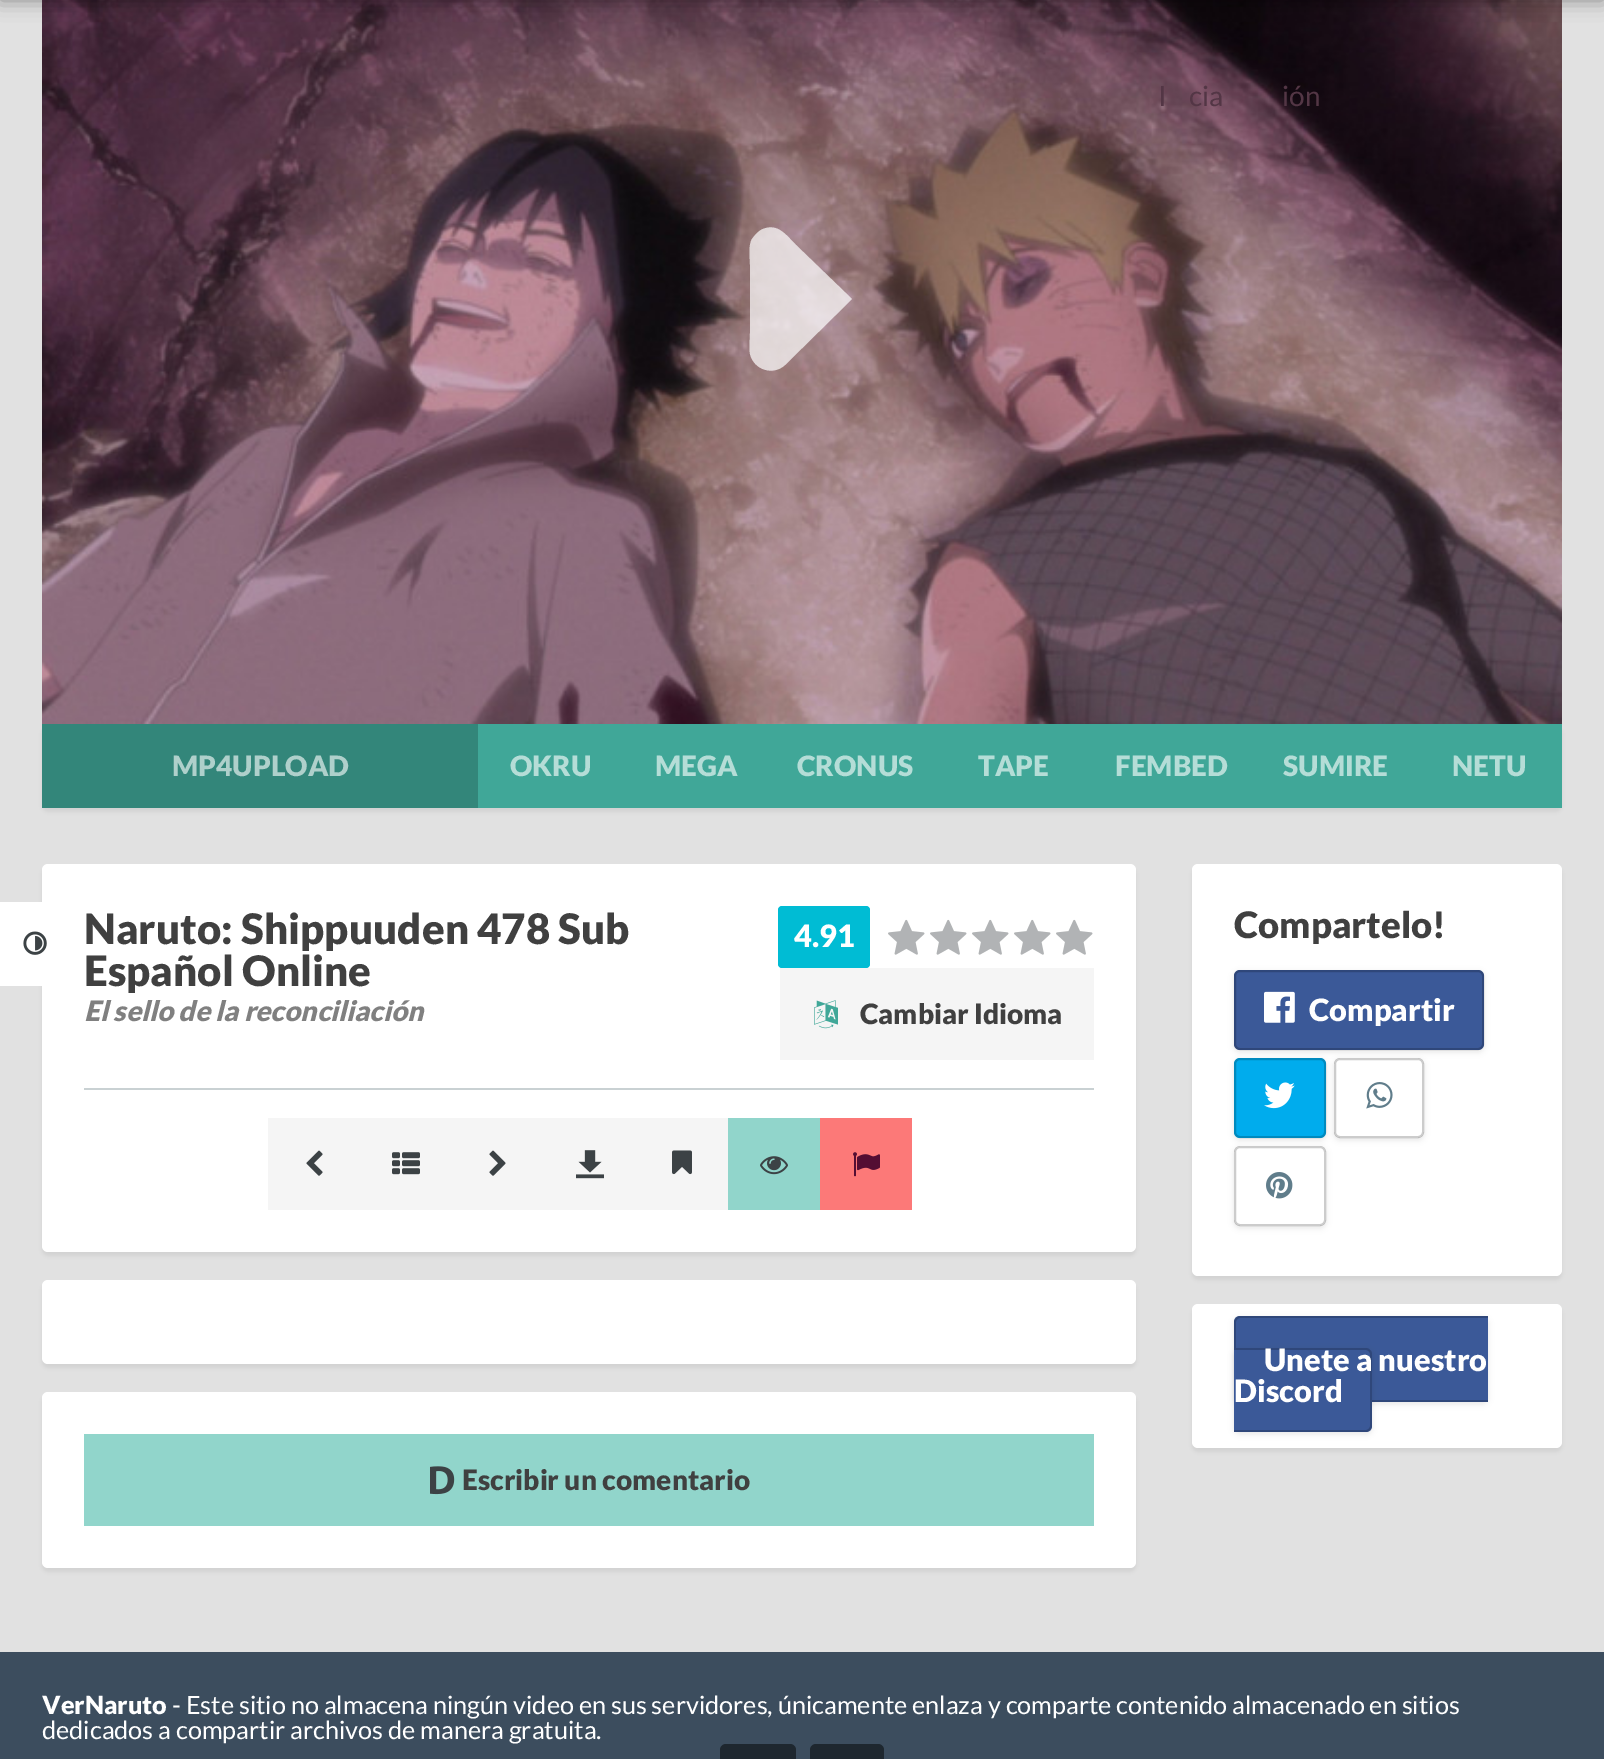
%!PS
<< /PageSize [1604 1759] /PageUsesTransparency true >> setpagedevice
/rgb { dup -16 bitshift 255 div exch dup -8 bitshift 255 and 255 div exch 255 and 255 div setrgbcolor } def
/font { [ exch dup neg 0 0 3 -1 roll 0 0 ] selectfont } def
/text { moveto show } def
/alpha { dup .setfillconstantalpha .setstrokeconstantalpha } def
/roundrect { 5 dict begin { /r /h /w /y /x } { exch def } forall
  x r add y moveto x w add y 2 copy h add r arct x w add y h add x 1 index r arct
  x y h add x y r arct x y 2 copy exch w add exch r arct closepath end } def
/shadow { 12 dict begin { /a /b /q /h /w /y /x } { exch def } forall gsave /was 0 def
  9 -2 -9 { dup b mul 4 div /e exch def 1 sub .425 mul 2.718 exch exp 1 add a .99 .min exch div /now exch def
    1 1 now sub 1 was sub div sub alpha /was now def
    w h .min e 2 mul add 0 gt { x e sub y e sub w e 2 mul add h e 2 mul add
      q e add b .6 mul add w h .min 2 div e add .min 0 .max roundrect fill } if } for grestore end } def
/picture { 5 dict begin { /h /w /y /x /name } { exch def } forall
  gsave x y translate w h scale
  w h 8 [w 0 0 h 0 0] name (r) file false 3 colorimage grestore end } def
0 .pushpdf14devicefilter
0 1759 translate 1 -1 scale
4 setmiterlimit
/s1 { /Lato-Regular 28 font 16#533645 rgb } def
/s2 { /Lato-Black 28 font 16#AFD0CB rgb } def
/s3 { /Lato-Black 28 font 16#B5DDD7 rgb } def
/s4 { /Lato-Black 42 font 16#404040 rgb } def
/s5 { /Lato-BlackItalic 28 font 16#808080 rgb } def
/s6 { /Lato-Black 30.75 font 16#FFFFFF rgb } def
/s7 { /Lato-Black 28 font 16#404040 rgb } def
/s8 { /Lato-Black 36.5 font 16#404040 rgb } def
/s9 { /Lato-Black 25.2 font 16#FFFFFF rgb } def
/s10 { /Lato-Regular 25.2 font 16#FFFFFF rgb } def
16#E1E1E1 rgb
0 0 1604 1759 rectfill
16#000000 rgb
42 868 1094 388 6 2 0.05 shadow
16#FFFFFF rgb
42 864 1094 388 6 roundrect fill
-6 902 moveto 70 902 lineto 74.5 902 78 905.5 78 910 curveto 78 986 lineto 2 986 lineto -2.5 986 -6 982.5 -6 978 curveto closepath fill
(pic1.raw) 23 931 24 24 picture
(pic2.raw) 42 0 1520 724 picture
16#000000 rgb
0 -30 1604 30 0 10 0.4 shadow
s1
(I) 1158 106 text
(cia) 1189 106 text
(ión) 1282 106 text
0.7 alpha
16#FFFFFF rgb
785 365 moveto 773 376 754 370 750 354 curveto 749 348 750 338 750 333 curveto 750 265 lineto 750 258 748 246 752 239 curveto 755 235 758 231 763 229 curveto 778 223 786 235 796 245 curveto 852 299 lineto closepath fill
1 alpha
16#000000 rgb
42 728 1520 84 6 2 0.05 shadow
16#40A798 rgb
478 724 1084 84 rectfill
16#33867A rgb
42 724 436 84 rectfill
s2
(MP4UPLOAD) 172 776 text
s3
(OKRU) 510 776 text
(MEGA) 655 776 text
(CRONUS) 797 776 text
(TAPE) 978 776 text
(FEMBED) 1115 776 text
(SUMIRE) 1283 776 text
(NETU) 1452 776 text
16#C9D1D3 rgb
84 1088 1010 2 rectfill
s4
(Naruto: Shippuuden 478 Sub) 84 944 text
(Español Online) 84 986 text
s5
(El sello de la reconciliación) 84 1021 text
16#00BCD4 rgb
778 906 92 62 4 roundrect fill
s6
(4.91) 794 947 text
(pic3.raw) 888 919 37 36 picture
(pic3.raw) 930 919 37 36 picture
(pic3.raw) 972 919 37 36 picture
(pic3.raw) 1014 919 37 36 picture
(pic3.raw) 1056 919 37 36 picture
16#F5F5F5 rgb
780 968 314 92 rectfill
(pic4.raw) 814 1000 24 29 picture
s7
(Cambiar Idioma) 860 1024 text
16#F5F5F5 rgb
268 1118 460 92 rectfill
(pic5.raw) 306 1150 17 26 picture
(pic6.raw) 672 1150 20 25 picture
16#91D5CB rgb
728 1118 92 92 rectfill
(pic7.raw) 760 1156 28 19 picture
16#FC7978 rgb
820 1118 92 92 rectfill
(pic8.raw) 853 1152 27 25 picture
(pic9.raw) 392 1152 28 23 picture
(pic10.raw) 489 1150 17 26 picture
(pic11.raw) 576 1150 28 29 picture
16#000000 rgb
42 1284 1094 84 6 2 0.05 shadow
16#FFFFFF rgb
42 1280 1094 84 6 roundrect fill
16#000000 rgb
42 1396 1094 176 6 2 0.05 shadow
16#FFFFFF rgb
42 1392 1094 176 6 roundrect fill
16#91D5CB rgb
84 1434 1010 92 rectfill
(pic12.raw) 430 1466 25 29 picture
s7
(Escribir un comentario) 462 1490 text
16#000000 rgb
1192 868 370 412 6 2 0.05 shadow
16#FFFFFF rgb
1192 864 370 412 6 roundrect fill
s8
(Compartelo!) 1234 938 text
16#000000 rgb
1234 972 250 80 6 3 0.1 shadow
16#3B5998 rgb
1234 970 250 80 6 roundrect fill
0.2 alpha
16#000000 rgb
2 setlinewidth
1235 971 248 78 5 roundrect stroke
1 alpha
(pic13.raw) 1264 991 31 32 picture
s6
(Compartir) 1309 1021 text
16#000000 rgb
1234 1060 92 80 6 3 0.1 shadow
16#00ACED rgb
1234 1058 92 80 6 roundrect fill
0.2 alpha
16#000000 rgb
1235 1059 90 78 5 roundrect stroke
1 alpha
(pic14.raw) 1264 1082 31 27 picture
gsave
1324 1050 moveto 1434 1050 lineto 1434 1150 lineto 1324 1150 lineto closepath 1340 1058 moveto 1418 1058 lineto 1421.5 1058 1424 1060.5 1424 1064 curveto 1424 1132 lineto 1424 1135.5 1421.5 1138 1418 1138 curveto 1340 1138 lineto 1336.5 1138 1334 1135.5 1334 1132 curveto 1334 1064 lineto 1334 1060.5 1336.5 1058 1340 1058 curveto closepath eoclip newpath
1334 1060 90 80 6 3 0.1 shadow
grestore
0.2 alpha
1335 1059 88 78 5 roundrect stroke
1 alpha
(pic15.raw) 1366 1082 27 27 picture
gsave
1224 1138 moveto 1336 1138 lineto 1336 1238 lineto 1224 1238 lineto closepath 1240 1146 moveto 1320 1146 lineto 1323.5 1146 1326 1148.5 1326 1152 curveto 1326 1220 lineto 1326 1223.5 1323.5 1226 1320 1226 curveto 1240 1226 lineto 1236.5 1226 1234 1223.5 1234 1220 curveto 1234 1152 lineto 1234 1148.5 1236.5 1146 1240 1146 curveto closepath eoclip newpath
1234 1148 92 80 6 3 0.1 shadow
grestore
0.2 alpha
1235 1147 90 78 5 roundrect stroke
1 alpha
(pic16.raw) 1266 1172 27 27 picture
1192 1308 370 144 6 2 0.05 shadow
16#FFFFFF rgb
1192 1304 370 144 6 roundrect fill
16#000000 rgb
1234 1318 254 86 6 3 0.1 shadow
16#3B5998 rgb
1240 1316 moveto 1488 1316 lineto 1488 1402 lineto 1240 1402 lineto 1236.5 1402 1234 1399.5 1234 1396 curveto 1234 1322 lineto 1234 1318.5 1236.5 1316 1240 1316 curveto closepath fill
0.2 alpha
16#000000 rgb
1240 1316 moveto 1488 1316 lineto 1488 1402 lineto 1240 1402 lineto 1237 1402 1234 1399 1234 1396 curveto 1234 1322 lineto 1234 1319 1237 1316 1240 1316 curveto closepath 1240 1318 moveto 1488 1318 lineto 1488 1400 lineto 1240 1400 lineto 1238 1400 1236 1398 1236 1396 curveto 1236 1322 lineto 1236 1320 1238 1318 1240 1318 curveto closepath eofill
1 alpha
1234 1350 138 84 6 3 0.1 shadow
16#3B5998 rgb
1234 1348 moveto 1366 1348 lineto 1369.5 1348 1372 1350.5 1372 1354 curveto 1372 1426 lineto 1372 1429.5 1369.5 1432 1366 1432 curveto 1234 1432 lineto closepath fill
0.2 alpha
16#000000 rgb
1234 1348 moveto 1366 1348 lineto 1369 1348 1372 1351 1372 1354 curveto 1372 1426 lineto 1372 1429 1369 1432 1366 1432 curveto 1234 1432 lineto closepath 1234 1350 moveto 1366 1350 lineto 1368 1350 1370 1352 1370 1354 curveto 1370 1426 lineto 1370 1428 1368 1430 1366 1430 curveto 1234 1430 lineto closepath eofill
1 alpha
s6
(Unete a nuestro) 1264 1371 text
(Discord) 1234 1402 text
16#3C4D5E rgb
0 1652 1604 107 rectfill
s9
(VerNaruto) 42 1714 text
s10
(- Este sitio no almacena ningún video en sus servidores, únicamente enlaza y comparte contenido almacenado en sitios) 172 1714 text
(dedicados a compartir archivos de manera gratuita.) 42 1739 text
16#1E272F rgb
720 1744 76 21 6 roundrect fill
810 1744 74 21 6 roundrect fill
.poppdf14devicefilter showpage
